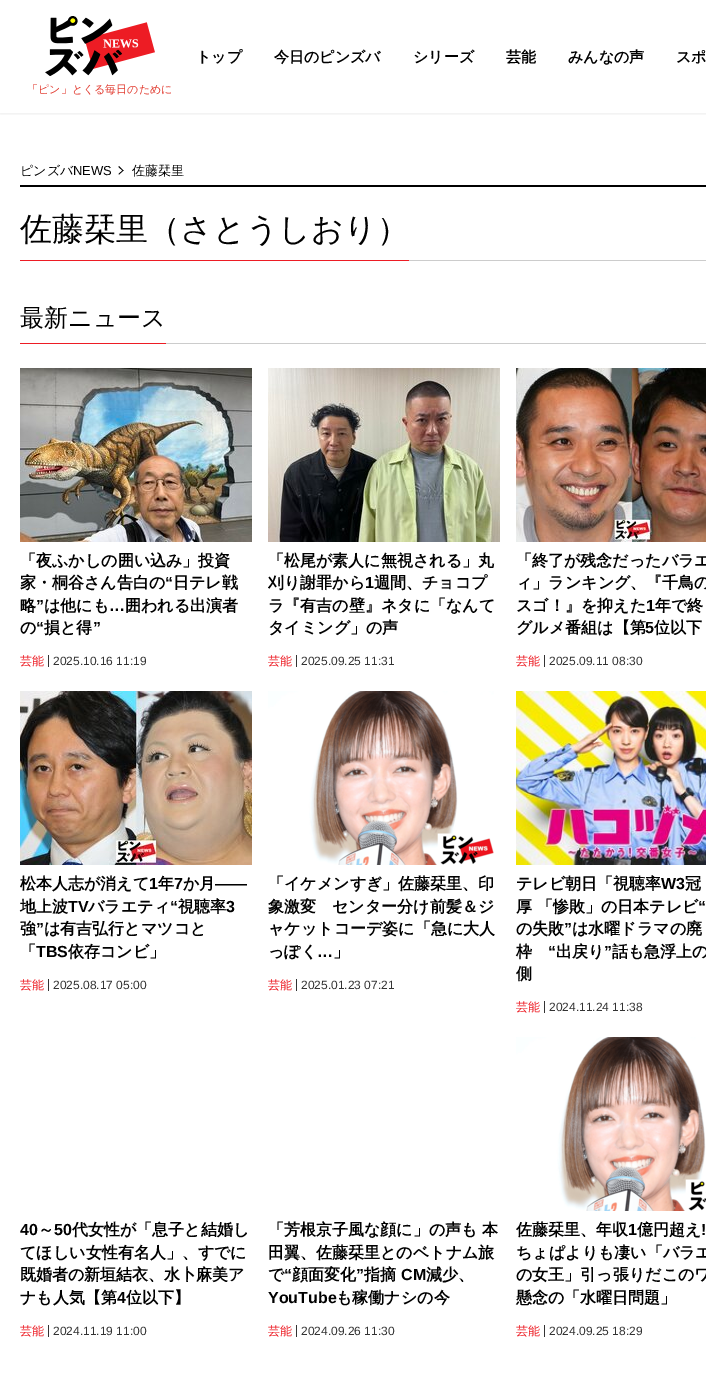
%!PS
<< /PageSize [706 1393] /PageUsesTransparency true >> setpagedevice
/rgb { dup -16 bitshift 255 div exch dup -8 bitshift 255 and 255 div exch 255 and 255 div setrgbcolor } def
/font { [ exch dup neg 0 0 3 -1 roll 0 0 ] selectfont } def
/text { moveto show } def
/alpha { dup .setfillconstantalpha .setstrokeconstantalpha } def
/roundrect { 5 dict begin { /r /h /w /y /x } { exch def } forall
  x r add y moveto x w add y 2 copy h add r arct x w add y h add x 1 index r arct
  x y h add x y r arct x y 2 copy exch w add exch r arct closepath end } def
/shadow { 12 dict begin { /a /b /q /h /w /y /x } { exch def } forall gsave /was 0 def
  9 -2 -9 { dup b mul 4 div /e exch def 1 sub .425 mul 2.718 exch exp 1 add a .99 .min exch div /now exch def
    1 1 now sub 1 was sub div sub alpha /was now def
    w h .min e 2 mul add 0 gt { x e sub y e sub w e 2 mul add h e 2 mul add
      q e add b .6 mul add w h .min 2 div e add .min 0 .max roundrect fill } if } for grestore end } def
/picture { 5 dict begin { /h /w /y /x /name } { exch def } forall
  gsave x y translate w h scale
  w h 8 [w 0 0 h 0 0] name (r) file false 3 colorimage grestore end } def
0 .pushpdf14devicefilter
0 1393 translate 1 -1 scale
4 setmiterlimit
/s1 { /WenQuanYiZenHei-Bold 15 font 16#000000 rgb } def
/s2 { /WenQuanYiZenHei-Medium 11 font 16#E13A2F rgb } def
/s3 { /WenQuanYiZenHei-Medium 13 font 16#000000 rgb } def
/s4 { /LiberationSans-Regular 13 font 16#000000 rgb } def
/s5 { /WenQuanYiZenHei-Medium 32 font 16#000000 rgb } def
/s6 { /WenQuanYiZenHei-Medium 24 font 16#000000 rgb } def
/s7 { /WenQuanYiZenHei-Bold 16 font 16#000000 rgb } def
/s8 { /LiberationSans-Bold 16 font 16#000000 rgb } def
/s9 { /WenQuanYiZenHei-Medium 12 font 16#ED1C24 rgb } def
/s10 { /LiberationSans-Regular 12 font 16#333333 rgb } def
16#FFFFFF rgb
0 0 706 1393 rectfill
gsave
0 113 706 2 rectclip
16#000000 rgb
0 0 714 113 0 2.5 0.1 shadow
grestore
s1
(トップ) 196 62 text
(今日のピンズバ) 274 62 text
(シリーズ) 413 62 text
(芸能) 506 62 text
(みんなの声) 568 62 text
(スポ) 676 62 text
(pic1.raw) 45 16 110 60 picture
s2
(「ピン」とくる毎日のために) 27 93 text
16#000000 rgb
20 185 686 2 rectfill
s3
(ピンズバ) 20 175 text
s4
(NEWS) 73 175 text
119 166 moveto 123.5 170.5 lineto 123 171 lineto 118.5 167 lineto closepath fill
123 170 moveto 123.5 170.5 lineto 119 174.5 lineto 118.5 174 lineto closepath fill
s3
(佐藤栞里) 132 175 text
16#CCCCCC rgb
409 260 297 1 rectfill
16#ED1C24 rgb
20 260 389 1 rectfill
s5
(佐藤栞里（さとうしおり）) 20 240 text
16#CCCCCC rgb
166 343 540 1 rectfill
16#ED1C24 rgb
20 343 146 1 rectfill
s6
(最新ニュース) 20 326 text
(pic2.raw) 20 368 232 174 picture
s7
(「夜ふかしの囲い込み」投資) 20 566 text
(家・桐谷さん告白の) 20 588 text
s8
(“) 165 588 text
s7
(日テレ戦) 173 588 text
(略) 20 611 text
s8
(”) 36 611 text
s7
(は他にも) 44 611 text
(囲われる出演者) 125 611 text
s8
(…) 109 611 text
s7
(の) 20 633 text
s8
(“) 36 633 text
s7
(損と得) 44 633 text
s8
(”) 93 633 text
16#333333 rgb
48 655 1 12 rectfill
s9
(芸能) 20 665 text
s10
(2025.10.16 11:19) 53 665 text
(pic3.raw) 268 368 232 174 picture
s7
(「松尾が素人に無視される」丸) 268 566 text
(刈り謝罪から) 268 588 text
s8
(1) 365 588 text
s7
(週間、チョコプ) 374 588 text
(ラ『有吉の壁』ネタに「なんて) 268 611 text
(タイミング」の声) 268 633 text
16#333333 rgb
296 655 1 12 rectfill
s9
(芸能) 268 665 text
s10
(2025.09.25 11:31) 301 665 text
(pic4.raw) 516 368 190 174 picture
s7
(「終了が残念だったバラエ) 516 566 text
(ィ」ランキング、『千鳥の) 516 588 text
(スゴ！』を抑えた) 516 611 text
s8
(1) 646 611 text
s7
(年で終) 655 611 text
(グルメ番組は【第) 516 633 text
s8
(5) 645 633 text
s7
(位以下) 654 633 text
16#333333 rgb
544 655 1 12 rectfill
s9
(芸能) 516 665 text
s10
(2025.09.11 08:30) 549 665 text
(pic5.raw) 20 691 232 174 picture
s7
(松本人志が消えて) 20 889 text
s8
(1) 149 889 text
s7
(年) 158 889 text
s8
(7) 174 889 text
s7
(か月) 183 889 text
s8
(――) 215 889 text
s7
(地上波) 20 912 text
s8
(TV) 68 912 text
s7
(バラエティ) 88 912 text
s8
(“) 170 912 text
s7
(視聴率) 178 912 text
s8
(3) 226 912 text
s7
(強) 20 934 text
s8
(”) 36 934 text
s7
(は有吉弘行とマツコと) 44 934 text
(「) 20 957 text
s8
(TBS) 36 957 text
s7
(依存コンビ」) 68 957 text
16#333333 rgb
48 979 1 12 rectfill
s9
(芸能) 20 989 text
s10
(2025.08.17 05:00) 53 989 text
(pic6.raw) 268 691 226 174 picture
s7
(「イケメンすぎ」佐藤栞里、印) 268 889 text
(象激変　センター分け前髪＆ジ) 268 912 text
(ャケットコーデ姿に「急に大人) 268 934 text
(っぽく) 268 957 text
s8
(…) 317 957 text
s7
(」) 333 957 text
16#333333 rgb
296 979 1 12 rectfill
s9
(芸能) 268 989 text
s10
(2025.01.23 07:21) 301 989 text
(pic7.raw) 516 691 190 174 picture
s7
(テレビ朝日「視聴率) 516 889 text
s8
(W3) 661 889 text
s7
(冠) 685 889 text
(厚 「惨敗」の日本テレビ) 516 912 text
s8
(“) 698 912 text
s7
(の失敗) 516 934 text
s8
(”) 564 934 text
s7
(は水曜ドラマの廃) 572 934 text
(枠) 516 957 text
s8
(“) 548 957 text
s7
(出戻り) 556 957 text
s8
(”) 604 957 text
s7
(話も急浮上の) 612 957 text
(側) 516 979 text
16#333333 rgb
544 1001 1 12 rectfill
s9
(芸能) 516 1011 text
s10
(2024.11.24 11:38) 549 1011 text
s8
(40) 20 1235 text
s7
(～) 38 1235 text
s8
(50) 54 1235 text
s7
(代女性が「息子と結婚し) 72 1235 text
(てほしい女性有名人」、すでに) 20 1258 text
(既婚者の新垣結衣、水卜麻美ア) 20 1280 text
(ナも人気【第) 20 1303 text
s8
(4) 117 1303 text
s7
(位以下】) 126 1303 text
16#333333 rgb
48 1325 1 12 rectfill
s9
(芸能) 20 1335 text
s10
(2024.11.19 11:00) 53 1335 text
s7
(「芳根京子風な顔に」の声も 本) 268 1235 text
(田翼、佐藤栞里とのベトナム旅) 268 1258 text
(で) 268 1280 text
s8
(“) 284 1280 text
s7
(顔面変化) 292 1280 text
s8
(”) 356 1280 text
s7
(指摘) 364 1280 text
s8
(CM) 401 1280 text
s7
(減少、) 426 1280 text
s8
(YouTube) 268 1303 text
s7
(も稼働ナシの今) 336 1303 text
16#333333 rgb
296 1325 1 12 rectfill
s9
(芸能) 268 1335 text
s10
(2024.09.26 11:30) 301 1335 text
(pic8.raw) 516 1037 190 174 picture
s7
(佐藤栞里、年収) 516 1235 text
s8
(1) 628 1235 text
s7
(億円超え) 637 1235 text
s8
(!) 701 1235 text
s7
(ちょぱよりも凄い「バラエ) 516 1258 text
(の女王」引っ張りだこのワ) 516 1280 text
(懸念の「水曜日問題」) 516 1303 text
16#333333 rgb
544 1325 1 12 rectfill
s9
(芸能) 516 1335 text
s10
(2024.09.25 18:29) 549 1335 text
.poppdf14devicefilter showpage
